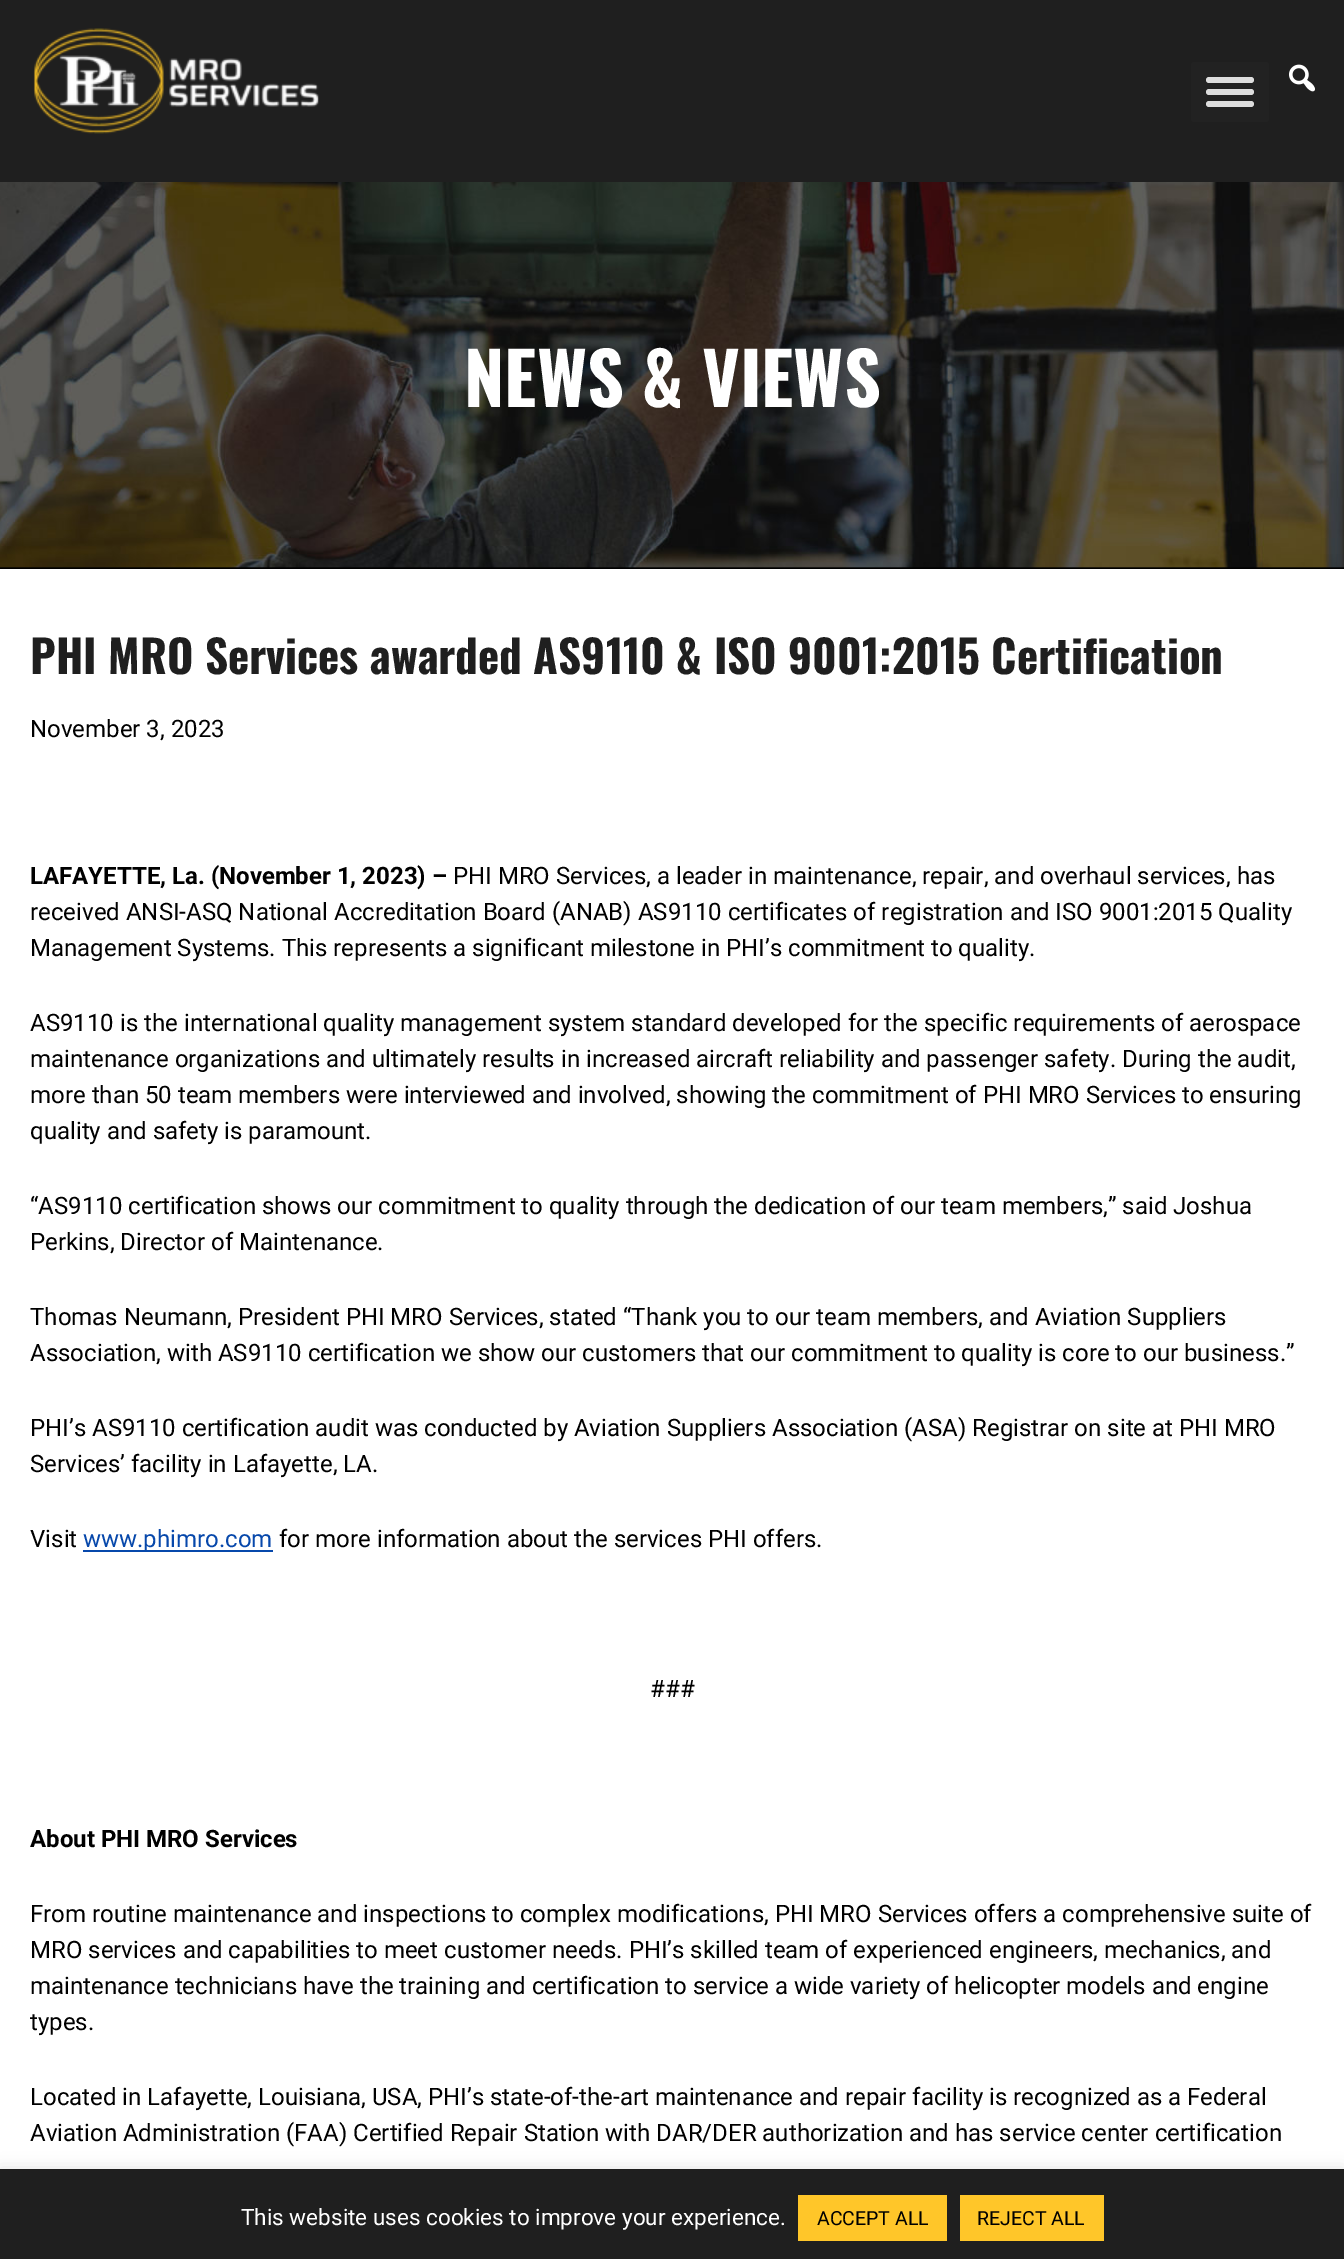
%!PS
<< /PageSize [1344 2259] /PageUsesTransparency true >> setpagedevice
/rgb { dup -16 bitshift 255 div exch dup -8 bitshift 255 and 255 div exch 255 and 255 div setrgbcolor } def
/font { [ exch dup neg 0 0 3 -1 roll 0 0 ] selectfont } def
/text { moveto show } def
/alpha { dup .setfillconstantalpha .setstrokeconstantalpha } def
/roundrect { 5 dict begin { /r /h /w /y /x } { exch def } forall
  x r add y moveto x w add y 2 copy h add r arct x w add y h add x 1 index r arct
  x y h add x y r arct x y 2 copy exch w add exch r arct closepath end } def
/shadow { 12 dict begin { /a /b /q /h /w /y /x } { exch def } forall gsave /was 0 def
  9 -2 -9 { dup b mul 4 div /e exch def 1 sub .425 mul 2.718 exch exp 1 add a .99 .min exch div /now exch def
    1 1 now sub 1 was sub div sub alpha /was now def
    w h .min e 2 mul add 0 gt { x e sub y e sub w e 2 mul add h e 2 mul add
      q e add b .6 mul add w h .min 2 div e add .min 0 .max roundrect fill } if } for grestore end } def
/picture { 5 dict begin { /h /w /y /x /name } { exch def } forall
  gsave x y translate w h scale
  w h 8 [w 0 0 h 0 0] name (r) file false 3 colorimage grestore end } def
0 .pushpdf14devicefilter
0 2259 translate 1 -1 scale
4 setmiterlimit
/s1 { /Oswald-Bold 72 font 16#FFFFFF rgb } def
/s2 { /Oswald-Bold 45 font 16#1F1F1F rgb } def
/s3 { /Roboto-Regular 24 font 16#000000 rgb } def
/s4 { /Roboto-Bold 24 font 16#000000 rgb } def
/s5 { /Roboto-Regular 24 font 16#0748AB rgb } def
/s6 { /Roboto-Regular 22.5 font 16#FFFFFF rgb } def
/s7 { /Roboto-Regular 19.5 font 16#000000 rgb } def
16#FFFFFF rgb
0 0 1344 2259 rectfill
16#1F1F1F rgb
0 0 1344 182 rectfill
(pic1.raw) 33 28 286 106 picture
16#222222 rgb
1191 62 78 60 3 roundrect fill
16#DDDDDD rgb
1206 77 48 6 3 roundrect fill
1206 89 48 6 3 roundrect fill
1206 101 48 6 3 roundrect fill
(pic2.raw) 1289 64 26 28 picture
16#000000 rgb
0 567 1344 2 rectfill
(pic3.raw) 0 182 1344 386 picture
s1
(NEWS & VIEWS) 464 407 text
s2
(PHI MRO Services awarded AS9110 & ISO 9001:2015 Certification) 30 674 text
s3
(November 3, 2023) 30 737 text
s4
(LAFAYETTE, La. \(November 1, 2023\) –) 30 884 text
s3
(PHI MRO Services, a leader in maintenance, repair, and overhaul services, has) 453 884 text
(received ANSI-ASQ National Accreditation Board \(ANAB\) AS9110 certificates of registration and ISO 9001:2015 Quality) 30 920 text
(Management Systems. This represents a significant milestone in PHI’s commitment to quality.) 30 956 text
(AS9110 is the international quality management system standard developed for the specific requirements of aerospace) 30 1031 text
(maintenance organizations and ultimately results in increased aircraft reliability and passenger safety. During the audit,) 30 1067 text
(more than 50 team members were interviewed and involved, showing the commitment of PHI MRO Services to ensuring) 30 1103 text
(quality and safety is paramount.) 30 1139 text
(“AS9110 certification shows our commitment to quality through the dedication of our team members,” said Joshua) 30 1214 text
(Perkins, Director of Maintenance.) 30 1250 text
(Thomas Neumann, President PHI MRO Services, stated “Thank you to our team members, and Aviation Suppliers) 30 1325 text
(Association, with AS9110 certification we show our customers that our commitment to quality is core to our business.”) 30 1361 text
(PHI’s AS9110 certification audit was conducted by Aviation Suppliers Association \(ASA\) Registrar on site at PHI MRO) 30 1436 text
(Services’ facility in Lafayette, LA.) 30 1472 text
(Visit) 30 1547 text
16#0748AB rgb
83 1550 190 2 rectfill
(www.phimro.com) 83 1547 text
s3
(for more information about the services PHI offers.) 279 1547 text
(###) 650 1697 text
s4
(About PHI MRO Services) 30 1847 text
s3
(From routine maintenance and inspections to complex modifications, PHI MRO Services offers a comprehensive suite of) 30 1922 text
(MRO services and capabilities to meet customer needs. PHI’s skilled team of experienced engineers, mechanics, and) 30 1958 text
(maintenance technicians have the training and certification to service a wide variety of helicopter models and engine) 30 1994 text
(types.) 30 2030 text
(Located in Lafayette, Louisiana, USA, PHI’s state-of-the-art maintenance and repair facility is recognized as a Federal) 30 2105 text
(Aviation Administration \(FAA\) Certified Repair Station with DAR/DER authorization and has service center certification) 30 2141 text
16#ACABAB rgb
0 2168 1344 90 0 7.5 0.3 shadow
16#1F1F1F rgb
0 2169 1344 90 rectfill
s6
(This website uses cookies to improve your experience.) 241 2225 text
16#FFC629 rgb
798 2195 149 46 rectfill
s7
(ACCEPT ALL) 817 2225 text
16#FFC629 rgb
960 2195 144 46 rectfill
s7
(REJECT ALL) 977 2225 text
.poppdf14devicefilter showpage
